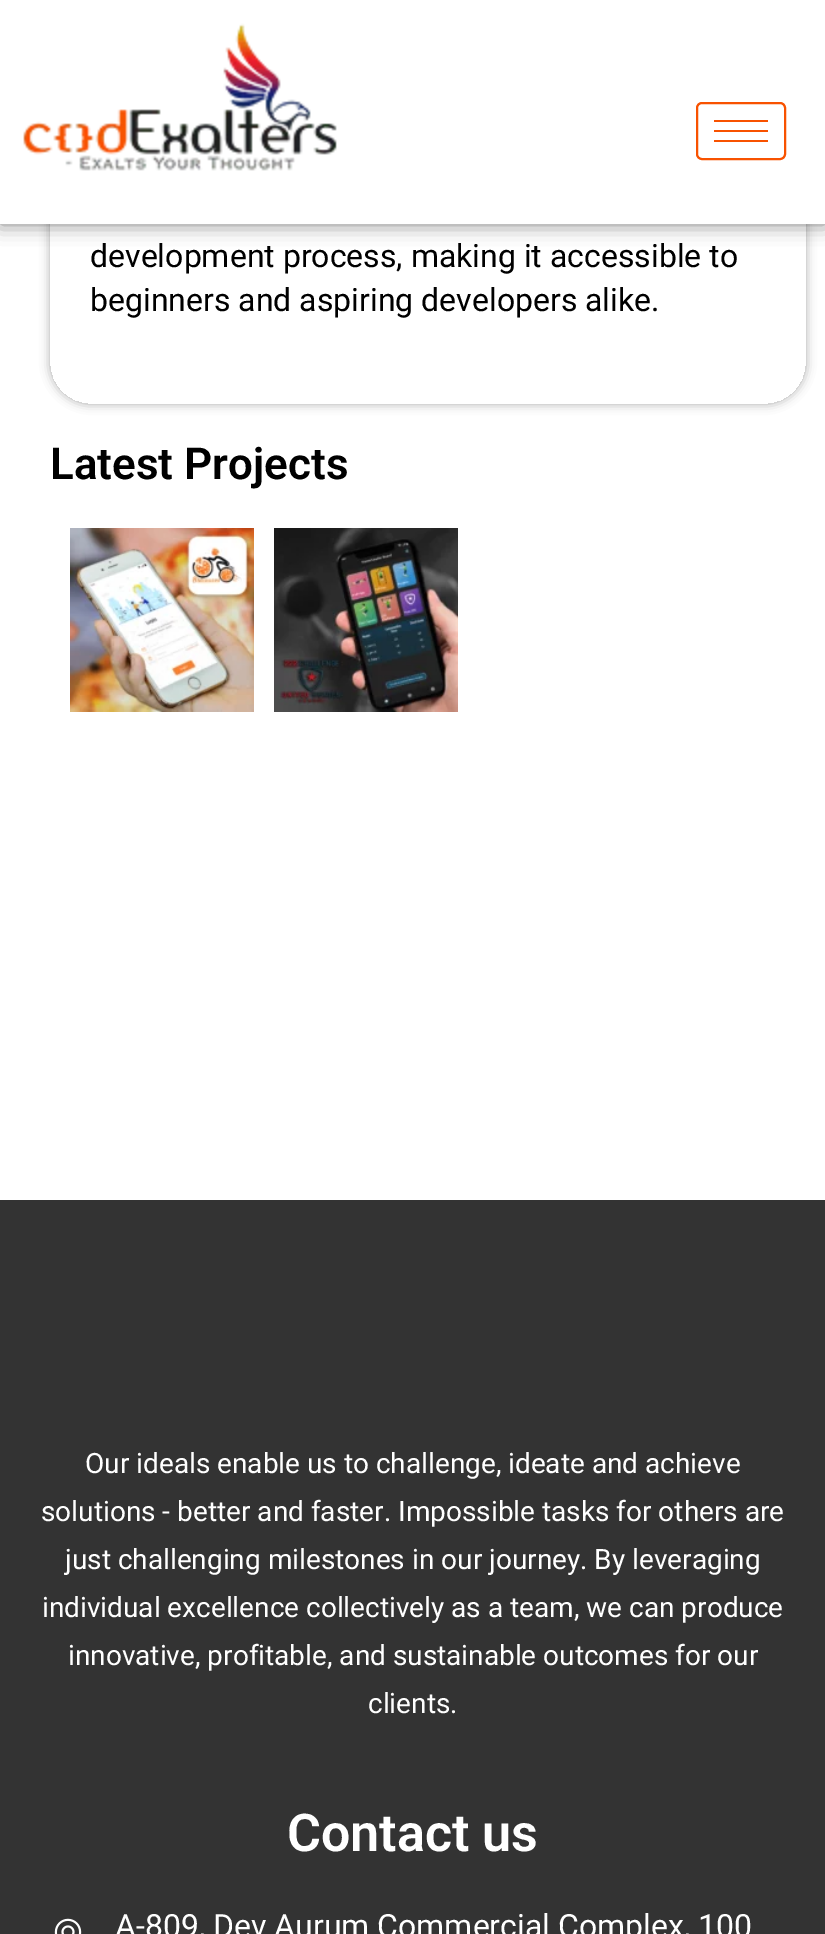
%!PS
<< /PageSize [825 1934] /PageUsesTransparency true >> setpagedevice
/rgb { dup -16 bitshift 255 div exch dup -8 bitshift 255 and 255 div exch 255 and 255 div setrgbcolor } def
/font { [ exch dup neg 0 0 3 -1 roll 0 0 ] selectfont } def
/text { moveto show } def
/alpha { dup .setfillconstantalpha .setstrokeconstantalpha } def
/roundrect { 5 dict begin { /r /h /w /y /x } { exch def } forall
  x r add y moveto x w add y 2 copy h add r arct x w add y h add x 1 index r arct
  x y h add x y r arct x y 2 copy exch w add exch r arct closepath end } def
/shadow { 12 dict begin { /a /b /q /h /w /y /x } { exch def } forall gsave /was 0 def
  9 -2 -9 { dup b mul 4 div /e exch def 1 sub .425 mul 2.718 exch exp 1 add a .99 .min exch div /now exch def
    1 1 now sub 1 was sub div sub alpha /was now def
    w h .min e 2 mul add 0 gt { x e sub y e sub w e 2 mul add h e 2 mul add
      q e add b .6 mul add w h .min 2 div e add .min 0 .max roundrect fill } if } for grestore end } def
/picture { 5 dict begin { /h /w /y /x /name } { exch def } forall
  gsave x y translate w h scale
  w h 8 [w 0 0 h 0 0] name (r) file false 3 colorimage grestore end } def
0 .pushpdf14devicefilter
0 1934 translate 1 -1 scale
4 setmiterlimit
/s1 { /Roboto-Regular 32 font 16#000000 rgb } def
/s2 { /Roboto-SemiBold 44 font 16#000000 rgb } def
/s3 { /Roboto-Regular 28 font 16#FFFFFF rgb } def
/s4 { /Roboto-SemiBold 52 font 16#FFFFFF rgb } def
/s5 { /Roboto-Regular 32 font 16#FFFFFF rgb } def
16#FFFFFF rgb
0 0 825 1934 rectfill
16#000000 rgb
0 0 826 224 0 10 0.51 shadow
gsave
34 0 moveto 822 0 lineto 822 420 lineto 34 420 lineto closepath 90 -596 moveto 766 -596 lineto 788 -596 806 -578 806 -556 curveto 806 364 lineto 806 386 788 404 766 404 curveto 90 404 lineto 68 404 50 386 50 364 curveto 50 -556 lineto 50 -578 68 -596 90 -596 curveto closepath eoclip newpath
50 -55 756 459 40 5 0.33 shadow
grestore
16#FFFFFF rgb
0 0 825 224 rectfill
(pic1.raw) 23 23 314 148 picture
16#F85200 rgb
2 setlinewidth
697 103 88 56 5 roundrect stroke
714 120 54 2 rectfill
714 130 54 2 rectfill
714 140 54 2 rectfill
s1
(development process, making it accessible to) 90 267 text
(beginners and aspiring developers alike.) 90 311 text
s2
(Latest Projects) 50 479 text
(pic2.raw) 70 528 184 184 picture
(pic3.raw) 274 528 184 184 picture
16#333333 rgb
0 1200 825 734 rectfill
s3
(Our ideals enable us to challenge, ideate and achieve) 85 1473 text
(solutions - better and faster. Impossible tasks for others are) 41 1521 text
(just challenging milestones in our journey. By leveraging) 65 1569 text
(individual excellence collectively as a team, we can produce) 42 1617 text
(innovative, profitable, and sustainable outcomes for our) 68 1665 text
(clients.) 368 1713 text
s4
(Contact us) 287 1851 text
(pic4.raw) 54 1918 28 16 picture
s5
(A-809, Dev Aurum Commercial Complex, 100) 115 1937 text
.poppdf14devicefilter showpage
